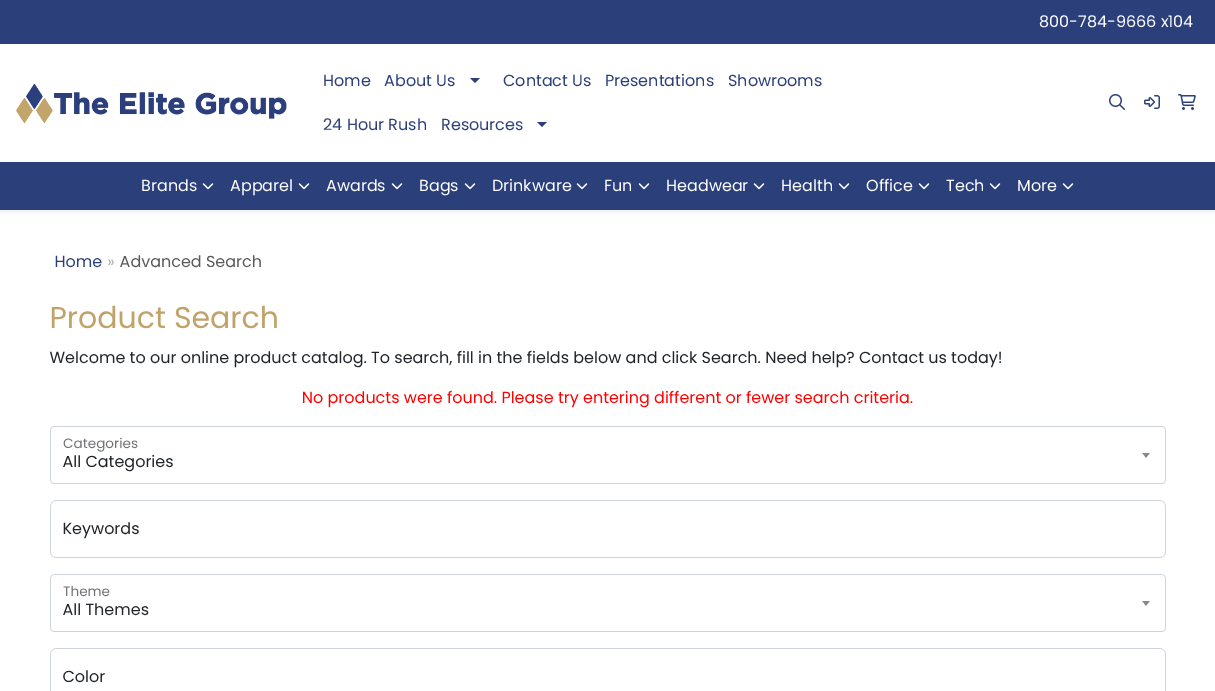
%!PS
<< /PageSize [1215 691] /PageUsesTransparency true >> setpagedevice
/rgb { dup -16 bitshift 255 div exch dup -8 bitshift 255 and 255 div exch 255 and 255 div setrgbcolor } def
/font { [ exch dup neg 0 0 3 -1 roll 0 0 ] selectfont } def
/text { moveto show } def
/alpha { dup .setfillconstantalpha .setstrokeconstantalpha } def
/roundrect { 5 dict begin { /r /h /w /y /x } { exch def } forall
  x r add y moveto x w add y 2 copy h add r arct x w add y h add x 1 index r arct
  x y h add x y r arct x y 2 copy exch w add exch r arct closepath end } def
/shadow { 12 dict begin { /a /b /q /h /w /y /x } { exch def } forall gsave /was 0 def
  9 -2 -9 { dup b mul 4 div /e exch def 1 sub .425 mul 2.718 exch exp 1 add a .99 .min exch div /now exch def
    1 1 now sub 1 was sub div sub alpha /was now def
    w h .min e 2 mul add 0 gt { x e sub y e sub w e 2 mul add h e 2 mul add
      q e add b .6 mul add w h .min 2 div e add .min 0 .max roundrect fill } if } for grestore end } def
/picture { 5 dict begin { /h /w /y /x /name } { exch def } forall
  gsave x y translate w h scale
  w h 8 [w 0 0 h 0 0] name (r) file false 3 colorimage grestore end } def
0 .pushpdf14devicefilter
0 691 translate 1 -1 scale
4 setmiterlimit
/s1 { /Poppins-Regular 16 font 16#FFFFFF rgb } def
/s2 { /Poppins-Regular 16 font 16#2B3F7B rgb } def
16#FFFFFF rgb
0 0 1215 691 rectfill
16#2B3F7B rgb
0 0 1215 44 rectfill
s1
(800-784-9666 x104) 1039 27 text
(pic1.raw) 16 84 271 40 picture
s2
(Home) 323 86 text
(About Us) 384 86 text
470 78 moveto 480 78 lineto 475 83 lineto closepath fill
(Contact Us) 503 86 text
(Presentations) 605 86 text
(Showrooms) 728 86 text
(24 Hour Rush) 323 130 text
(Resources) 441 130 text
537 122 moveto 547 122 lineto 542 127 lineto closepath fill
(pic2.raw) 1109 94 16 16 picture
(pic3.raw) 1144 95 16 14 picture
(pic4.raw) 1178 94 18 16 picture
16#000000 rgb
0 164 1215 48 0 2 0.07 shadow
16#2B3F7B rgb
0 162 1215 48 rectfill
s1
(Brands) 141 191 text
(pic5.raw) 202 183 12 7 picture
(Apparel) 230 191 text
(pic5.raw) 298 183 12 7 picture
(Awards) 326 191 text
(pic5.raw) 391 183 12 7 picture
(Bags) 419 191 text
(pic5.raw) 464 183 12 7 picture
(Drinkware) 492 191 text
(pic5.raw) 576 183 12 7 picture
(Fun) 604 191 text
(pic5.raw) 638 183 12 7 picture
(Headwear) 666 191 text
(pic5.raw) 753 183 12 7 picture
(Health) 781 191 text
(pic5.raw) 838 183 12 7 picture
(Office) 866 191 text
(pic5.raw) 918 183 12 7 picture
(Tech) 946 191 text
(pic5.raw) 989 183 12 7 picture
(More) 1017 191 text
(pic5.raw) 1062 183 12 7 picture
(pic6.raw) 49 255 1117 436 picture
.poppdf14devicefilter showpage
